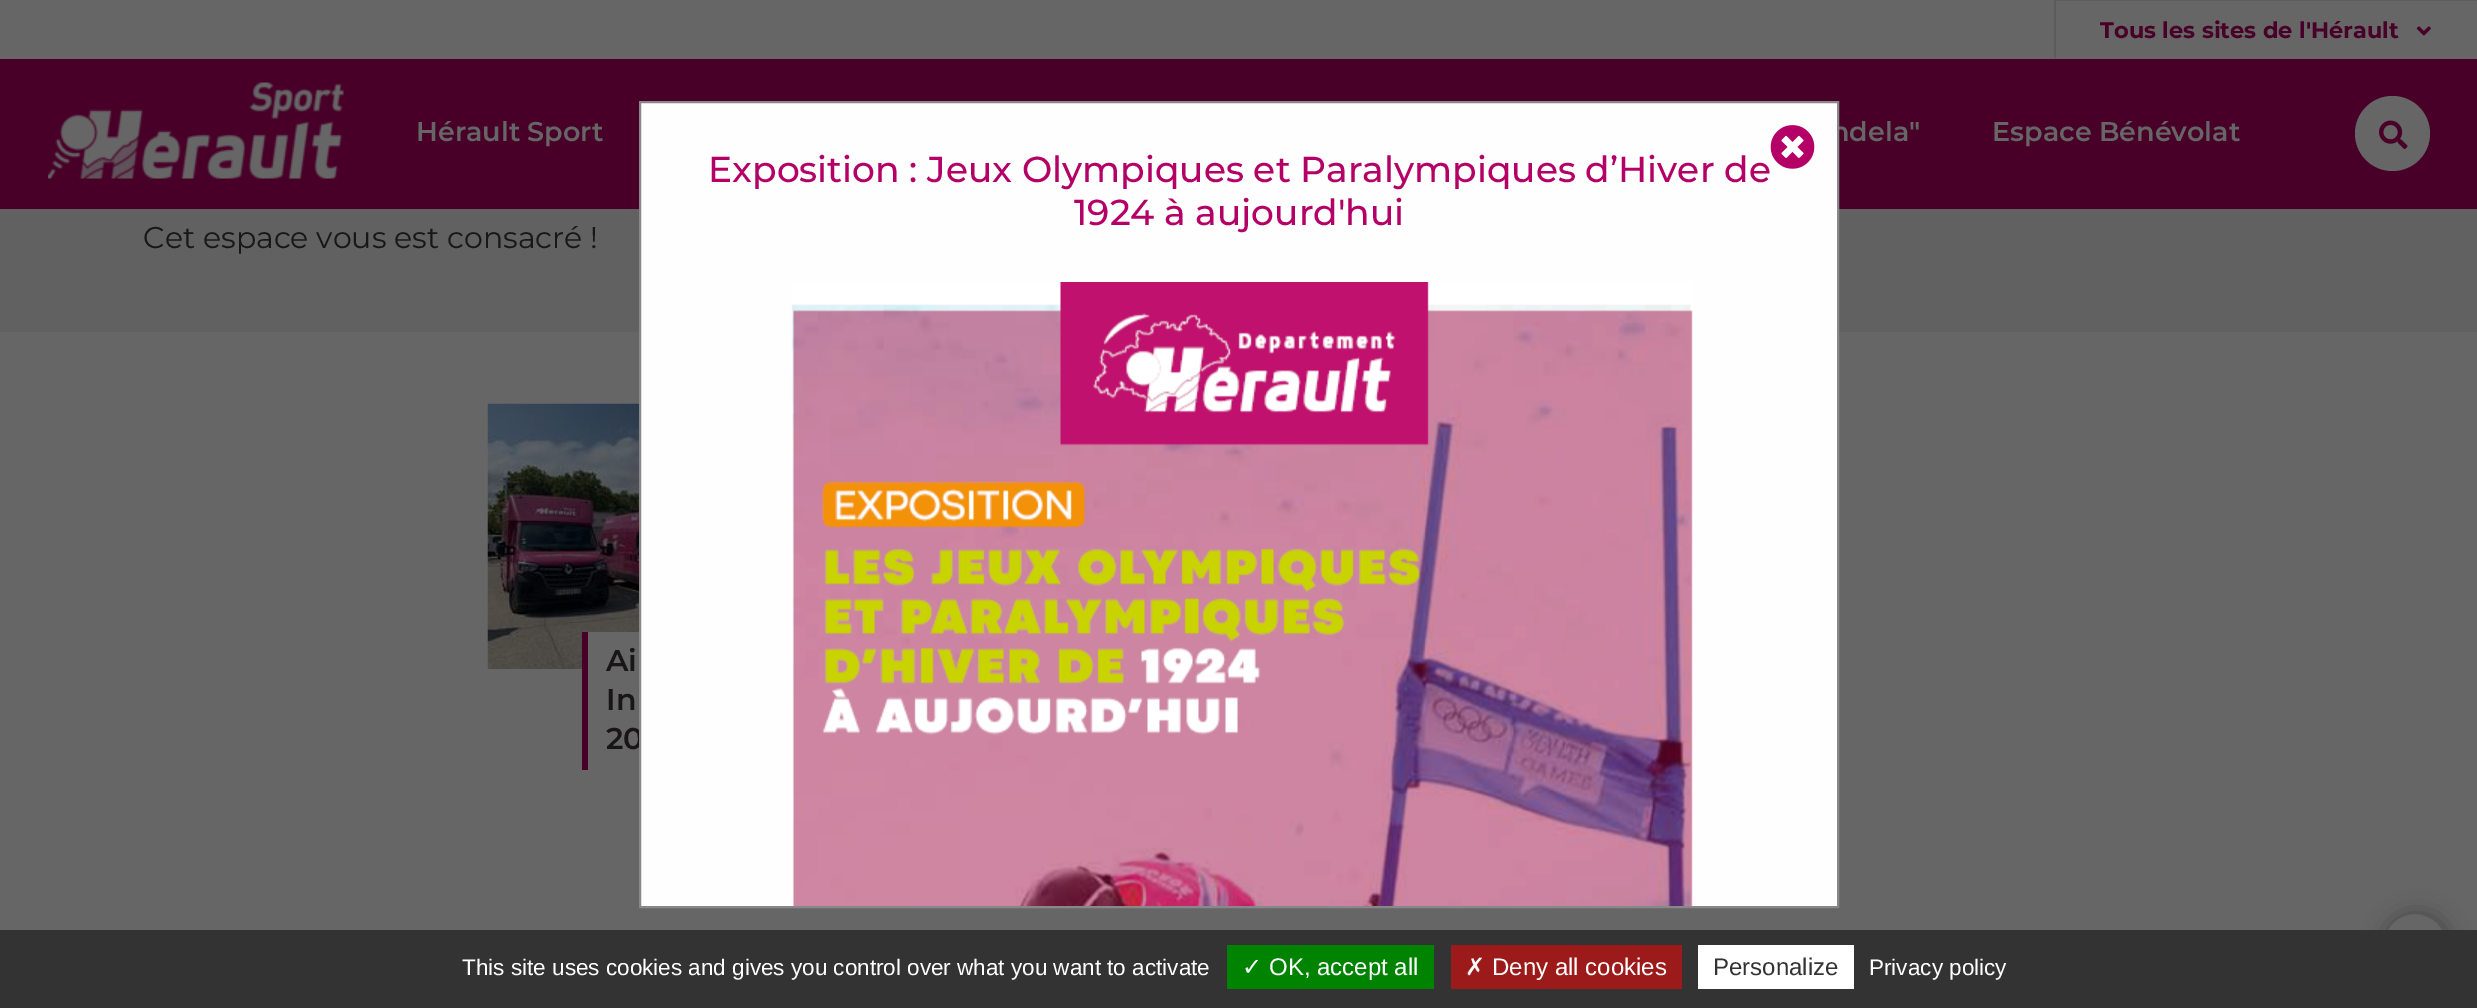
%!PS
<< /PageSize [2477 1008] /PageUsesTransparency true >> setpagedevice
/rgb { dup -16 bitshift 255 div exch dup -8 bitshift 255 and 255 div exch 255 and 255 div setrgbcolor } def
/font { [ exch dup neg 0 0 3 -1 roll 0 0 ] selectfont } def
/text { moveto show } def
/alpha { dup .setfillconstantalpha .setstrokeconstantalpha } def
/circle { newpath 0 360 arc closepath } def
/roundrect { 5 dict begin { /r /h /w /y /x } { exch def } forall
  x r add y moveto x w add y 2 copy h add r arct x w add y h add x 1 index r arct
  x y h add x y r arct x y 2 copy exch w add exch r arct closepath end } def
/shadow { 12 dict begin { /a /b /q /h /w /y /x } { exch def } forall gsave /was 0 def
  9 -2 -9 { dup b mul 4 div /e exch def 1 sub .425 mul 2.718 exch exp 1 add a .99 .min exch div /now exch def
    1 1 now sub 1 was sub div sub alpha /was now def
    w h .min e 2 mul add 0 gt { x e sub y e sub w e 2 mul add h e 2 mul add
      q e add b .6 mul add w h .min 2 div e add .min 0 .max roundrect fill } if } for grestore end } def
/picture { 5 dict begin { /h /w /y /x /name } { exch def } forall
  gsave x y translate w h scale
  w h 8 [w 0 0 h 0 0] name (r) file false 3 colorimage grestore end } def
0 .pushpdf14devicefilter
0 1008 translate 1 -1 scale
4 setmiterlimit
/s1 { /Montserrat-Bold 22.5 font 16#480029 rgb } def
/s2 { /Montserrat-SemiBold 27 font 16#666666 rgb } def
/s3 { /Montserrat-SemiBold 30 font 16#181616 rgb } def
/s4 { /Montserrat-Medium 36 font 16#B40066 rgb } def
/s5 { /Montserrat-Regular 30 font 16#181616 rgb } def
/s6 { /LiberationSans-Regular 22.5 font 16#FFFFFF rgb } def
/s7 { /DejaVuSans-Regular 24 font 16#FFFFFF rgb } def
/s8 { /LiberationSans-Regular 24 font 16#FFFFFF rgb } def
/s9 { /LiberationSans-Regular 24 font 16#333333 rgb } def
16#666666 rgb
0 0 2477 1008 rectfill
16#5D5D5D rgb
2054 0 423 1 rectfill
2054 0 2 59 rectfill
s1
(Tous les sites de l'Hérault) 2100 38 text
(pic1.raw) 2416 26 15 10 picture
0 59 2477 150 rectfill
(pic2.raw) 48 82 296 97 picture
s2
(Hérault Sport) 416 141 text
(ndela") 1831 141 text
(Espace Bénévolat) 1992 141 text
2392.5 133.5 37.5 circle fill
(pic3.raw) 2379 120 29 29 picture
16#616161 rgb
0 209 2477 123 rectfill
s3
(20) 606 749 text
16#FEFEFE rgb
640 102 moveto 1838 102 lineto 1838 907 lineto 640 907 lineto closepath gsave fill grestore
16#888888 rgb
2 setlinewidth
stroke
(pic4.raw) 1770 125 45 44 picture
s4
(Exposition : Jeux Olympiques et Paralympiques d’Hiver de) 708 182 text
(1924 à aujourd'hui) 1074 225 text
(pic5.raw) 791 282 902 624 picture
s5
(Cet espace vous est consacré !) 143 248 text
(pic6.raw) 487 403 152 266 picture
16#666666 rgb
588 632 51 37 rectfill
16#480029 rgb
582 632 6 138 rectfill
s3
(Ai) 606 671 text
(In) 606 710 text
16#000000 rgb
2384 914 66 66 33 12 0.3 shadow
16#666666 rgb
2415 945 32 circle gsave fill grestore
16#575757 rgb
stroke
16#333333 rgb
0 930 2477 78 rectfill
s6
(This site uses cookies and gives you control over what you want to activate) 462 975 text
16#008300 rgb
1227 945 207 44 rectfill
s7
(✓) 1242 975 text
s8
(OK, accept all) 1269 975 text
16#9C1A1A rgb
1451 945 231 44 rectfill
s7
(✗) 1465 975 text
s8
(Deny all cookies) 1492 975 text
1698 945 156 44 rectfill
s9
(Personalize) 1713 975 text
s6
(Privacy policy) 1869 975 text
.poppdf14devicefilter showpage
